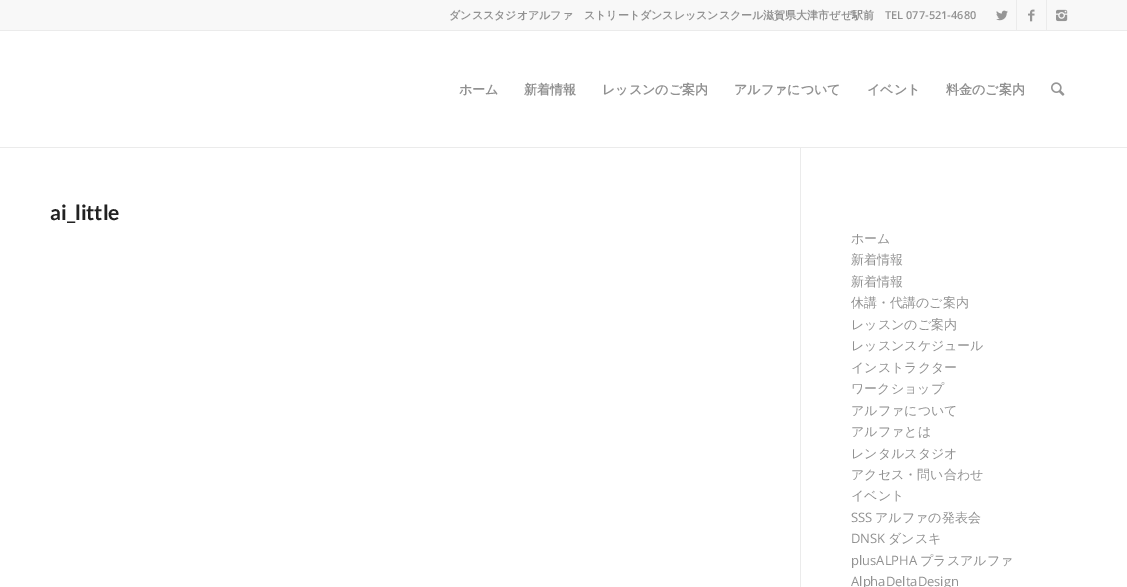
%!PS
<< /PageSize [1127 587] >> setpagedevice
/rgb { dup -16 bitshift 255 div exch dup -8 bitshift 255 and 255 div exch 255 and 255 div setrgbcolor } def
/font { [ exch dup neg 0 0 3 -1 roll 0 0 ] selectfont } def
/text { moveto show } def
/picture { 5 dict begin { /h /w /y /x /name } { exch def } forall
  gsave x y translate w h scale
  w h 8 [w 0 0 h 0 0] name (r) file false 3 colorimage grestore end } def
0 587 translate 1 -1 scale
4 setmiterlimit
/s1 { /WenQuanYiZenHei-Bold 11 font 16#919191 rgb } def
/s2 { /OpenSans-SemiBold 11 font 16#919191 rgb } def
/s3 { /WenQuanYiZenHei-Bold 13 font 16#919191 rgb } def
/s4 { /Lato-Bold 21 font 16#222222 rgb } def
/s5 { /WenQuanYiZenHei-Medium 13 font 16#919191 rgb } def
/s6 { /OpenSans-Regular 13 font 16#919191 rgb } def
16#FFFFFF rgb
0 0 1127 587 rectfill
16#F8F8F8 rgb
0 0 1127 30 rectfill
16#EBEBEB rgb
0 30 1127 1 rectfill
s1
(ダンススタジオアルファ　ストリートダンスレッスンスクール滋賀県大津市ぜぜ駅前) 449 19 text
s2
(TEL 077-521-4680) 885 19 text
16#EBEBEB rgb
1016 0 1 30 rectfill
(pic1.raw) 996 10 12 11 picture
1046 0 1 30 rectfill
(pic2.raw) 1028 9 7 13 picture
(pic3.raw) 1056 9 12 13 picture
0 147 1127 1 rectfill
s3
(ホーム) 459 94 text
(新着情報) 524 94 text
(レッスンのご案内) 602 94 text
(アルファについて) 734 94 text
(イベント) 867 94 text
(料金のご案内) 946 94 text
(pic4.raw) 1051 82 14 14 picture
16#EBEBEB rgb
800 148 1 439 rectfill
s4
(ai_little) 50 220 text
s5
(ホーム) 851 243 text
(新着情報) 851 264 text
(新着情報) 851 286 text
(休講・代講のご案内) 851 307 text
(レッスンのご案内) 851 329 text
(レッスンスケジュール) 851 350 text
(インストラクター) 851 372 text
(ワークショップ) 851 393 text
(アルファについて) 851 415 text
(アルファとは) 851 436 text
(レンタルスタジオ) 851 458 text
(アクセス・問い合わせ) 851 479 text
(イベント) 851 500 text
s6
(SSS) 851 522 text
s5
(アルファの発表会) 875 522 text
s6
(DNSK) 851 543 text
s5
(ダンスキ) 888 543 text
s6
(plusALPHA) 851 565 text
s5
(プラスアルファ) 920 565 text
s6
(AlphaDeltaDesign) 851 586 text
showpage
